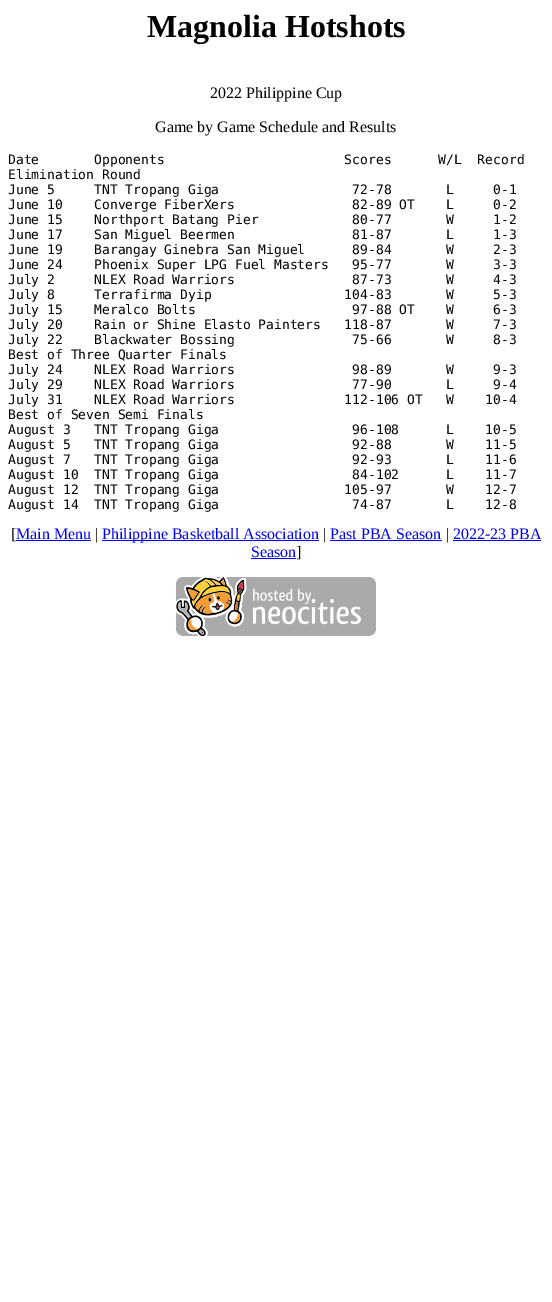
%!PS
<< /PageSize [552 1302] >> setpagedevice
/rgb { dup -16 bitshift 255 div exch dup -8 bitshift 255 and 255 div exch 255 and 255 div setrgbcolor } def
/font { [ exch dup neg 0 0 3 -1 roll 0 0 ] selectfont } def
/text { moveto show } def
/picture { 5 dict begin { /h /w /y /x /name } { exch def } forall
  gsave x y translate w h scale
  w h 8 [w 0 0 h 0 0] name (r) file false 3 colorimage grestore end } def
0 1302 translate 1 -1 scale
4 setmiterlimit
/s1 { /LiberationSerif-Bold 32 font 16#000000 rgb } def
/s2 { /LiberationSerif-Regular 16 font 16#000000 rgb } def
/s3 { /DejaVuSansMono-Regular 13 font 16#000000 rgb } def
/s4 { /LiberationSerif-Regular 16 font 16#0000EE rgb } def
16#FFFFFF rgb
0 0 552 1302 rectfill
s1
(Magnolia Hotshots) 147 37 text
s2
(2022 Philippine Cup) 210 98 text
(Game by Game Schedule and Results) 155 132 text
s3
(Date       Opponents                       Scores      W/L  Record) 8 164 text
(Elimination Round) 8 179 text
(June 5     TNT Tropang Giga                 72-78       L     0-1) 8 194 text
(June 10    Converge FiberXers               82-89 OT    L     0-2) 8 209 text
(June 15    Northport Batang Pier            80-77       W     1-2) 8 224 text
(June 17    San Miguel Beermen               81-87       L     1-3) 8 239 text
(June 19    Barangay Ginebra San Miguel      89-84       W     2-3) 8 254 text
(June 24    Phoenix Super LPG Fuel Masters   95-77       W     3-3) 8 269 text
(July 2     NLEX Road Warriors               87-73       W     4-3) 8 284 text
(July 8     Terrafirma Dyip                 104-83       W     5-3) 8 299 text
(July 15    Meralco Bolts                    97-88 OT    W     6-3) 8 314 text
(July 20    Rain or Shine Elasto Painters   118-87       W     7-3) 8 329 text
(July 22    Blackwater Bossing               75-66       W     8-3) 8 344 text
(Best of Three Quarter Finals) 8 359 text
(July 24    NLEX Road Warriors               98-89       W     9-3) 8 374 text
(July 29    NLEX Road Warriors               77-90       L     9-4) 8 389 text
(July 31    NLEX Road Warriors              112-106 OT   W    10-4) 8 404 text
(Best of Seven Semi Finals) 8 419 text
(August 3   TNT Tropang Giga                 96-108      L    10-5) 8 434 text
(August 5   TNT Tropang Giga                 92-88       W    11-5) 8 449 text
(August 7   TNT Tropang Giga                 92-93       L    11-6) 8 464 text
(August 10  TNT Tropang Giga                 84-102      L    11-7) 8 479 text
(August 12  TNT Tropang Giga                105-97       W    12-7) 8 494 text
(August 14  TNT Tropang Giga                 74-87       L    12-8) 8 509 text
s2
([) 11 539 text
s4
(Main Menu) 16 539 text
16 540 75 1 rectfill
s2
(|) 95 539 text
16#0000EE rgb
102 540 217 1 rectfill
(Philippine Basketball Association) 102 539 text
s2
(|) 323 539 text
s4
(Past PBA Season) 330 539 text
330 540 112 1 rectfill
s2
(|) 446 539 text
s4
(2022-23 PBA) 453 539 text
453 540 88 1 rectfill
(Season) 251 557 text
251 558 45 1 rectfill
s2
(]) 296 557 text
(pic1.raw) 176 577 200 59 picture
showpage
